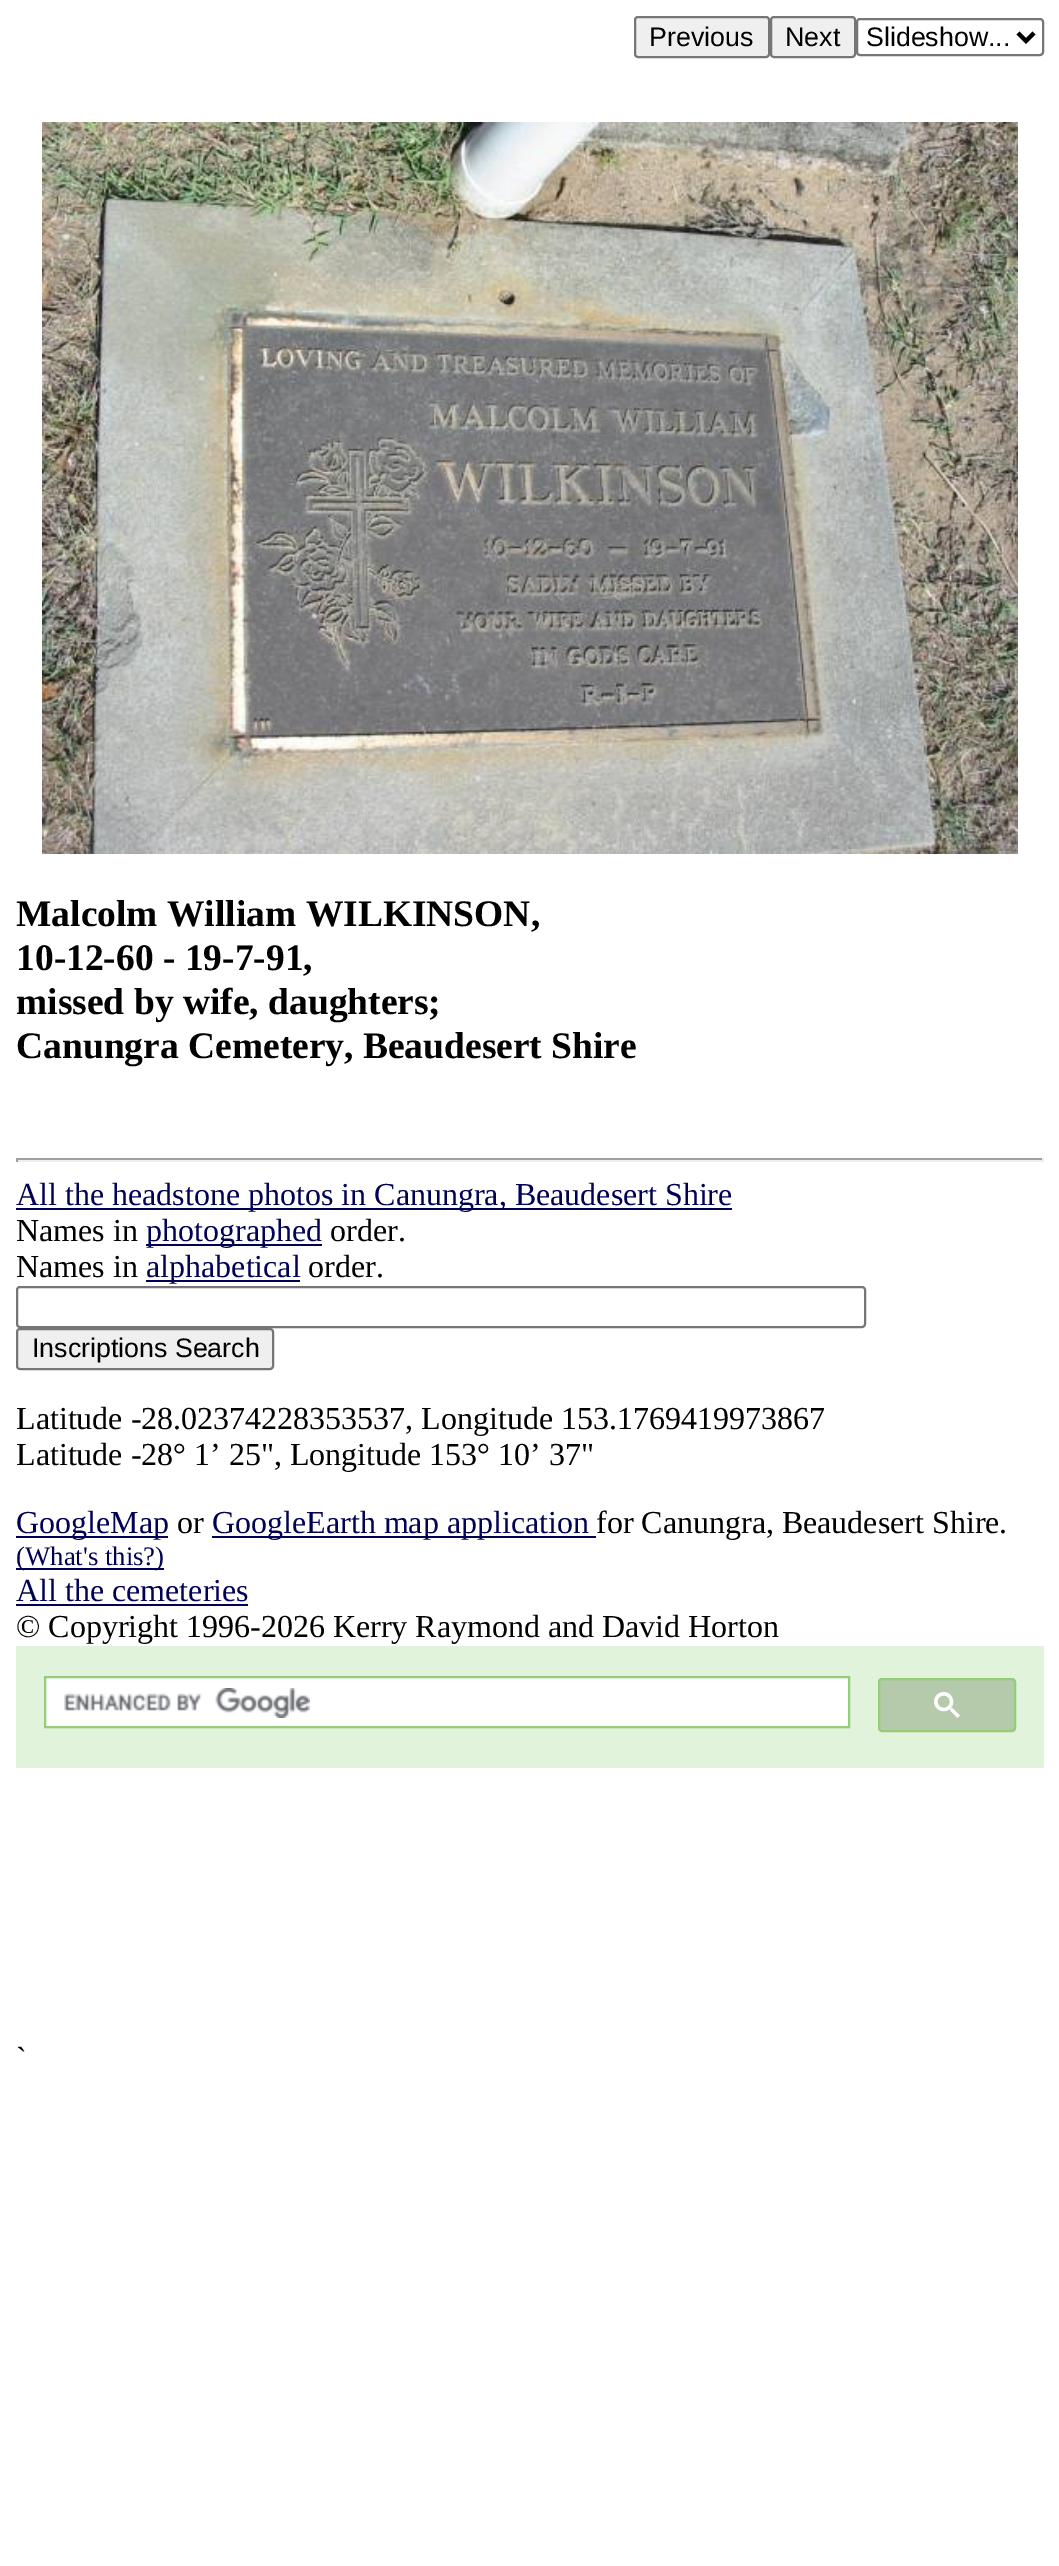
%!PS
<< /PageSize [1059 2566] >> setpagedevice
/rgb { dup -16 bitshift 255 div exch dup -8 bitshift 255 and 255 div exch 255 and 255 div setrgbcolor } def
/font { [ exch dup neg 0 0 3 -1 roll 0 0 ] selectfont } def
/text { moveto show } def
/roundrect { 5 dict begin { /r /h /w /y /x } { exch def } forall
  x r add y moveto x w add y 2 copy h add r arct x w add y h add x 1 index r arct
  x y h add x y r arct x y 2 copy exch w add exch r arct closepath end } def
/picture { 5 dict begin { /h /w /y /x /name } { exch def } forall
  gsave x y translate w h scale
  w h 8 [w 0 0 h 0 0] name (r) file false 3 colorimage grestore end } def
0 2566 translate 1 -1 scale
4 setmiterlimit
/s1 { /LiberationSans-Regular 26.75 font 16#000000 rgb } def
/s2 { /LiberationSerif-Bold 37.5 font 16#000000 rgb } def
/s3 { /LiberationSerif-Regular 32 font 16#000055 rgb } def
/s4 { /LiberationSerif-Regular 32 font 16#000000 rgb } def
/s5 { /LiberationSerif-Regular 26.75 font 16#000055 rgb } def
16#FFFFFF rgb
0 0 1059 2566 rectfill
16#EFEFEF rgb
635 17 134 40 3 roundrect gsave fill grestore
16#767676 rgb
2 setlinewidth
stroke
s1
(Previous) 649 46 text
16#EFEFEF rgb
771 17 84 40 3 roundrect gsave fill grestore
16#767676 rgb
stroke
s1
(Next) 785 46 text
16#767676 rgb
857 19 186 36 3 roundrect stroke
16#000000 rgb
4 setlinewidth
1018 33 moveto 1026 41 lineto 1034 33 lineto stroke
(Slideshow...) 866 46 text
(pic1.raw) 42 122 976 732 picture
s2
(Malcolm William WILKINSON,) 16 926 text
(10-12-60 - 19-7-91,) 16 970 text
(missed by wife, daughters;) 16 1014 text
(Canungra Cemetery, Beaudesert Shire) 16 1058 text
16#9F9F9F rgb
16 1158 1028 2 rectfill
16#EEEEEE rgb
1042 1158 2 4 rectfill
16 1160 1028 2 rectfill
16#9F9F9F rgb
16 1158 2 4 rectfill
16#000055 rgb
16 1208 716 2 rectfill
s3
(All the headstone photos in Canungra, Beaudesert Shire) 16 1205 text
s4
(Names in) 16 1241 text
16#000055 rgb
146 1244 176 2 rectfill
(photographed) 146 1241 text
s4
(order.) 330 1241 text
(Names in) 16 1277 text
16#000055 rgb
146 1280 154 2 rectfill
(alphabetical) 146 1277 text
s4
(order.) 308 1277 text
16#767676 rgb
2 setlinewidth
17 1287 848 40 3 roundrect stroke
16#EFEFEF rgb
17 1329 256 40 3 roundrect gsave fill grestore
16#767676 rgb
stroke
s1
(Inscriptions Search) 32 1357 text
s4
(Latitude -28.02374228353537, Longitude 153.1769419973867) 16 1429 text
(Latitude -28° 1’ 25", Longitude 153° 10’ 37") 16 1465 text
16#000055 rgb
16 1536 152 2 rectfill
(GoogleMap) 16 1533 text
s4
(or) 177 1533 text
16#000055 rgb
212 1536 384 2 rectfill
(GoogleEarth map application) 212 1533 text
s4
(for Canungra, Beaudesert Shire.) 596 1533 text
16#000055 rgb
16 1568 148 2 rectfill
s5
(\(What's this?\)) 16 1565 text
s3
(All the cemeteries) 16 1601 text
16 1604 232 2 rectfill
s4
(© Copyright 1996-2026 Kerry Raymond and David Horton) 16 1637 text
16#E1F3DA rgb
16 1646 1028 122 rectfill
16#FFFFFF rgb
45 1677 moveto 849 1677 lineto 849 1727 lineto 45 1727 lineto closepath gsave fill grestore
16#94CC7A rgb
stroke
(pic2.raw) 64 1688 246 30 picture
16#B5C9AB rgb
879 1679 136 52 3 roundrect gsave fill grestore
16#94CC7A rgb
stroke
(pic3.raw) 934 1692 26 26 picture
s4
(`) 16 2069 text
showpage
